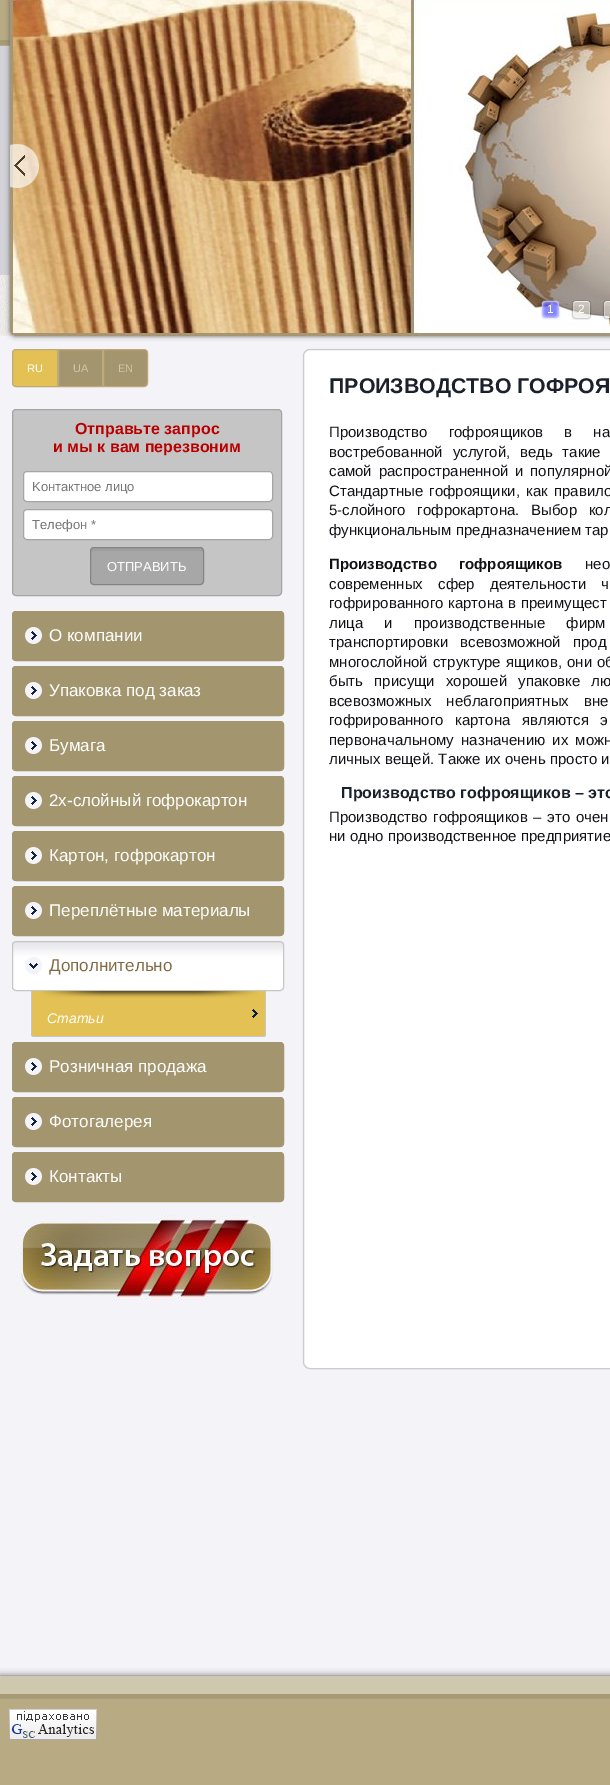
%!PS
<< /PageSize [610 1785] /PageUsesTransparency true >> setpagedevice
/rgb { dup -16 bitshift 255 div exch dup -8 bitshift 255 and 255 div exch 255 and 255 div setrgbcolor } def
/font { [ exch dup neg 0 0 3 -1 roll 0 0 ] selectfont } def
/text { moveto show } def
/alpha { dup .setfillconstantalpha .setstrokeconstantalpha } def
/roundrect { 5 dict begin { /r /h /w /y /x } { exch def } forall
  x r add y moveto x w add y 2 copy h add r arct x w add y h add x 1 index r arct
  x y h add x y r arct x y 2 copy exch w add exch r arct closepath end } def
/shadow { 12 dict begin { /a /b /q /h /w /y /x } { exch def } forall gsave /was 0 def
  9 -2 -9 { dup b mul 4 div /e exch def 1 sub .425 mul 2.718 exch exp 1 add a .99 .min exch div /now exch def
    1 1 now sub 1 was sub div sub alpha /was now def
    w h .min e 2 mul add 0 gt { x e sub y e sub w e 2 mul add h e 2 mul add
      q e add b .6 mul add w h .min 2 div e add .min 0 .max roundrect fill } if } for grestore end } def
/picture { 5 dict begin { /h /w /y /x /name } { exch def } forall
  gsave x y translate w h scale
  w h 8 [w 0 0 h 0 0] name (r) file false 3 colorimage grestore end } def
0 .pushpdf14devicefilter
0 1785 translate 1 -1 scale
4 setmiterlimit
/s1 { /LiberationSans-Regular 12 font 16#FFFFFF rgb } def
/s2 { /LiberationSans-Regular 11 font 16#FFFFFF rgb } def
/s3 { /LiberationSans-Regular 11 font 16#CEC8AC rgb } def
/s4 { /LiberationSans-Bold 16 font 16#B80000 rgb } def
/s5 { /LiberationSans-Regular 13 font 16#757575 rgb } def
/s6 { /LiberationSans-Regular 13 font 16#FFFFFF rgb } def
/s7 { /LiberationSans-Regular 17 font 16#FFFFFF rgb } def
/s8 { /LiberationSans-Regular 17 font 16#806942 rgb } def
/s9 { /LiberationSans-Italic 14 font 16#FFFFFF rgb } def
/s10 { /LiberationSans-Bold 21.3 font 16#1A202C rgb } def
/s11 { /LiberationSans-Regular 15 font 16#121117 rgb } def
/s12 { /LiberationSans-Bold 16 font 16#1A202C rgb } def
16#F4F3F8 rgb
0 0 610 1785 rectfill
16#D3D2D8 rgb
0 46 10 229 rectfill
(pic1.raw) 0 0 11 46 picture
(pic2.raw) 0 275 15 61 picture
16#666666 rgb
10 -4 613 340 5 2.5 1 shadow
(pic3.raw) 10 0 600 336 picture
(pic4.raw) 10 144 29 44 picture
(pic5.raw) 540 299 21 21 picture
s1
(1) 547 313 text
(pic6.raw) 571 300 21 20 picture
(2) 578 313 text
(pic7.raw) 602 300 8 20 picture
16#E3C154 rgb
16 349.5 moveto 57.5 349.5 lineto 57.5 386.5 lineto 16 386.5 lineto 14 386.5 12.5 385 12.5 383 curveto 12.5 353 lineto 12.5 351 14 349.5 16 349.5 curveto closepath gsave fill grestore
16#BDA97C rgb
stroke
s2
(RU) 27 372 text
16#A3956E rgb
58.5 349.5 moveto 102.5 349.5 lineto 102.5 386.5 lineto 58.5 386.5 lineto closepath gsave fill grestore
16#BDA97C rgb
stroke
s3
(UA) 73 372 text
16#A3956E rgb
103.5 349.5 moveto 144 349.5 lineto 146 349.5 147.5 351 147.5 353 curveto 147.5 383 lineto 147.5 385 146 386.5 144 386.5 curveto 103.5 386.5 lineto closepath gsave fill grestore
16#BDA97C rgb
stroke
s3
(EN) 118 372 text
16#C5C5C5 rgb
12.5 409.5 269 186 3.5 roundrect gsave fill grestore
16#A5A5A5 rgb
stroke
s4
(Отправьте запрос) 75 434 text
(и мы к вам перезвоним) 53 452 text
16#FFFFFF rgb
23.5 471.5 249 30 3.5 roundrect gsave fill grestore
16#A5A5A5 rgb
stroke
s5
(Kонтактное лицо) 32 491 text
16#FFFFFF rgb
23.5 509.5 249 30 3.5 roundrect gsave fill grestore
16#A5A5A5 rgb
stroke
s5
(Телефон *) 32 529 text
16#A7A7A7 rgb
90 547 114 38 4 roundrect fill
16#9E9E9E rgb
94 551 moveto 200 551 lineto 202 551 203 552 203 554 curveto 203 551 lineto 203 549 202 548 200 548 curveto 94 548 lineto 92 548 91 549 91 551 curveto 91 554 lineto 91 552 92 551 94 551 curveto closepath fill
16#848484 rgb
90.5 547.5 113 37 3.5 roundrect stroke
s6
(ОТПРАВИТЬ) 107 571 text
16#A3956E rgb
12 611 272 50 4 roundrect fill
(pic8.raw) 25 627 17 17 picture
12.5 611.5 271 49 3.5 roundrect stroke
s7
(О компании) 49 641 text
16#A3956E rgb
12 666 272 50 4 roundrect fill
(pic8.raw) 25 682 17 17 picture
12.5 666.5 271 49 3.5 roundrect stroke
s7
(Упаковка под заказ) 49 696 text
16#A3956E rgb
12 721 272 50 4 roundrect fill
(pic8.raw) 25 737 17 17 picture
12.5 721.5 271 49 3.5 roundrect stroke
s7
(Бумага) 49 751 text
16#A3956E rgb
12 776 272 50 4 roundrect fill
(pic8.raw) 25 792 17 17 picture
12.5 776.5 271 49 3.5 roundrect stroke
s7
(2х-слойный гофрокартон) 49 806 text
16#A3956E rgb
12 831 272 50 4 roundrect fill
(pic8.raw) 25 847 17 17 picture
12.5 831.5 271 49 3.5 roundrect stroke
s7
(Картон, гофрокартон) 49 861 text
16#A3956E rgb
12 886 272 50 4 roundrect fill
(pic8.raw) 25 902 17 17 picture
12.5 886.5 271 49 3.5 roundrect stroke
s7
(Переплётные материалы) 49 916 text
12 941 272 50 4 roundrect fill
(pic9.raw) 12 942 272 32 picture
16#C6C5C9 rgb
12.5 941.5 271 49 3.5 roundrect stroke
s8
(Дополнительно) 49 971 text
16#E3C154 rgb
31 991 moveto 266 991 lineto 266 1034 lineto 266 1035.5 264.5 1037 263 1037 curveto 34 1037 lineto 32.5 1037 31 1035.5 31 1034 curveto closepath fill
(pic10.raw) 41 991 217 27 picture
16#C6C5C9 rgb
31 991 moveto 266 991 lineto 266 1034 lineto 266 1036 265 1037 263 1037 curveto 34 1037 lineto 32 1037 31 1036 31 1034 curveto closepath 32 991 moveto 265 991 lineto 265 1034 lineto 265 1035 264 1036 263 1036 curveto 34 1036 lineto 33 1036 32 1035 32 1034 curveto closepath eofill
s9
(Статьи) 47 1023 text
16#A3956E rgb
12 1042 272 50 4 roundrect fill
(pic8.raw) 25 1058 17 17 picture
12.5 1042.5 271 49 3.5 roundrect stroke
s7
(Розничная продажа) 49 1072 text
16#A3956E rgb
12 1097 272 50 4 roundrect fill
(pic8.raw) 25 1113 17 17 picture
12.5 1097.5 271 49 3.5 roundrect stroke
s7
(Фотогалерея) 49 1127 text
16#A3956E rgb
12 1152 272 50 4 roundrect fill
(pic8.raw) 25 1168 17 17 picture
12.5 1152.5 271 49 3.5 roundrect stroke
s7
(Контакты) 49 1182 text
(pic11.raw) 16 1215 257 88 picture
16#E7E6EB rgb
303 349 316 1020 7 0.5 1 shadow
16#FFFFFF rgb
303.5 349.5 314 1019 6.5 roundrect gsave fill grestore
16#CBCACF rgb
stroke
s10
(ПРОИЗВОДСТВО ГОФРОЯ) 329 393 text
/LiberationSans-Regular 15 font
16#121117 rgb
329 437 moveto 17 0 32 (Производство гофроящиков в на) widthshow
329 457 moveto 5.5 0 32 (востребованной услугой, ведь такие) widthshow
329 476 moveto 2.5 0 32 (самой распространенной и популярной) widthshow
329 496 moveto 2 0 32 (Стандартные гофроящики, как правило) widthshow
329 515 moveto 7.5 0 32 (5-слойного гофрокартона. Выбор кол) widthshow
(функциональным предназначением тар) 329 535 text
/LiberationSans-Bold 15 font
329 569 moveto 18 0 32 (Производство гофроящиков) widthshow
/LiberationSans-Regular 15 font
585 569 moveto 18 0 32 (нео) widthshow
329 589 moveto 11 0 32 (современных сфер деятельности ч) widthshow
329 608 moveto 0.5 0 32 (гофрированного картона в преимущест) widthshow
329 628 moveto 17 0 32 (лица и производственные фирм) widthshow
329 647 moveto 8 0 32 (транспортировки всевозможной прод) widthshow
329 667 moveto 1 0 32 (многослойной структуре ящиков, они об) widthshow
329 686 moveto 7 0 32 (быть присущи хорошей упаковке лю) widthshow
329 706 moveto 11 0 32 (всевозможных неблагоприятных вне) widthshow
329 725 moveto 7.5 0 32 (гофрированного картона являются э) widthshow
329 745 moveto 3 0 32 (первоначальному назначению их можн) widthshow
(личных вещей. Также их очень просто и) 329 764 text
s12
(Производство гофроящиков – это) 341 798 text
/LiberationSans-Regular 15 font
16#121117 rgb
329 822 moveto 1.5 0 32 (Производство гофроящиков – это очен) widthshow
(ни одно производственное предприятие) 329 841 text
16#000000 rgb
0 1676 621 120 0 3.5 0.6 shadow
(pic12.raw) 0 1676 610 109 picture
(pic13.raw) 9 1709 88 31 picture
.poppdf14devicefilter showpage
